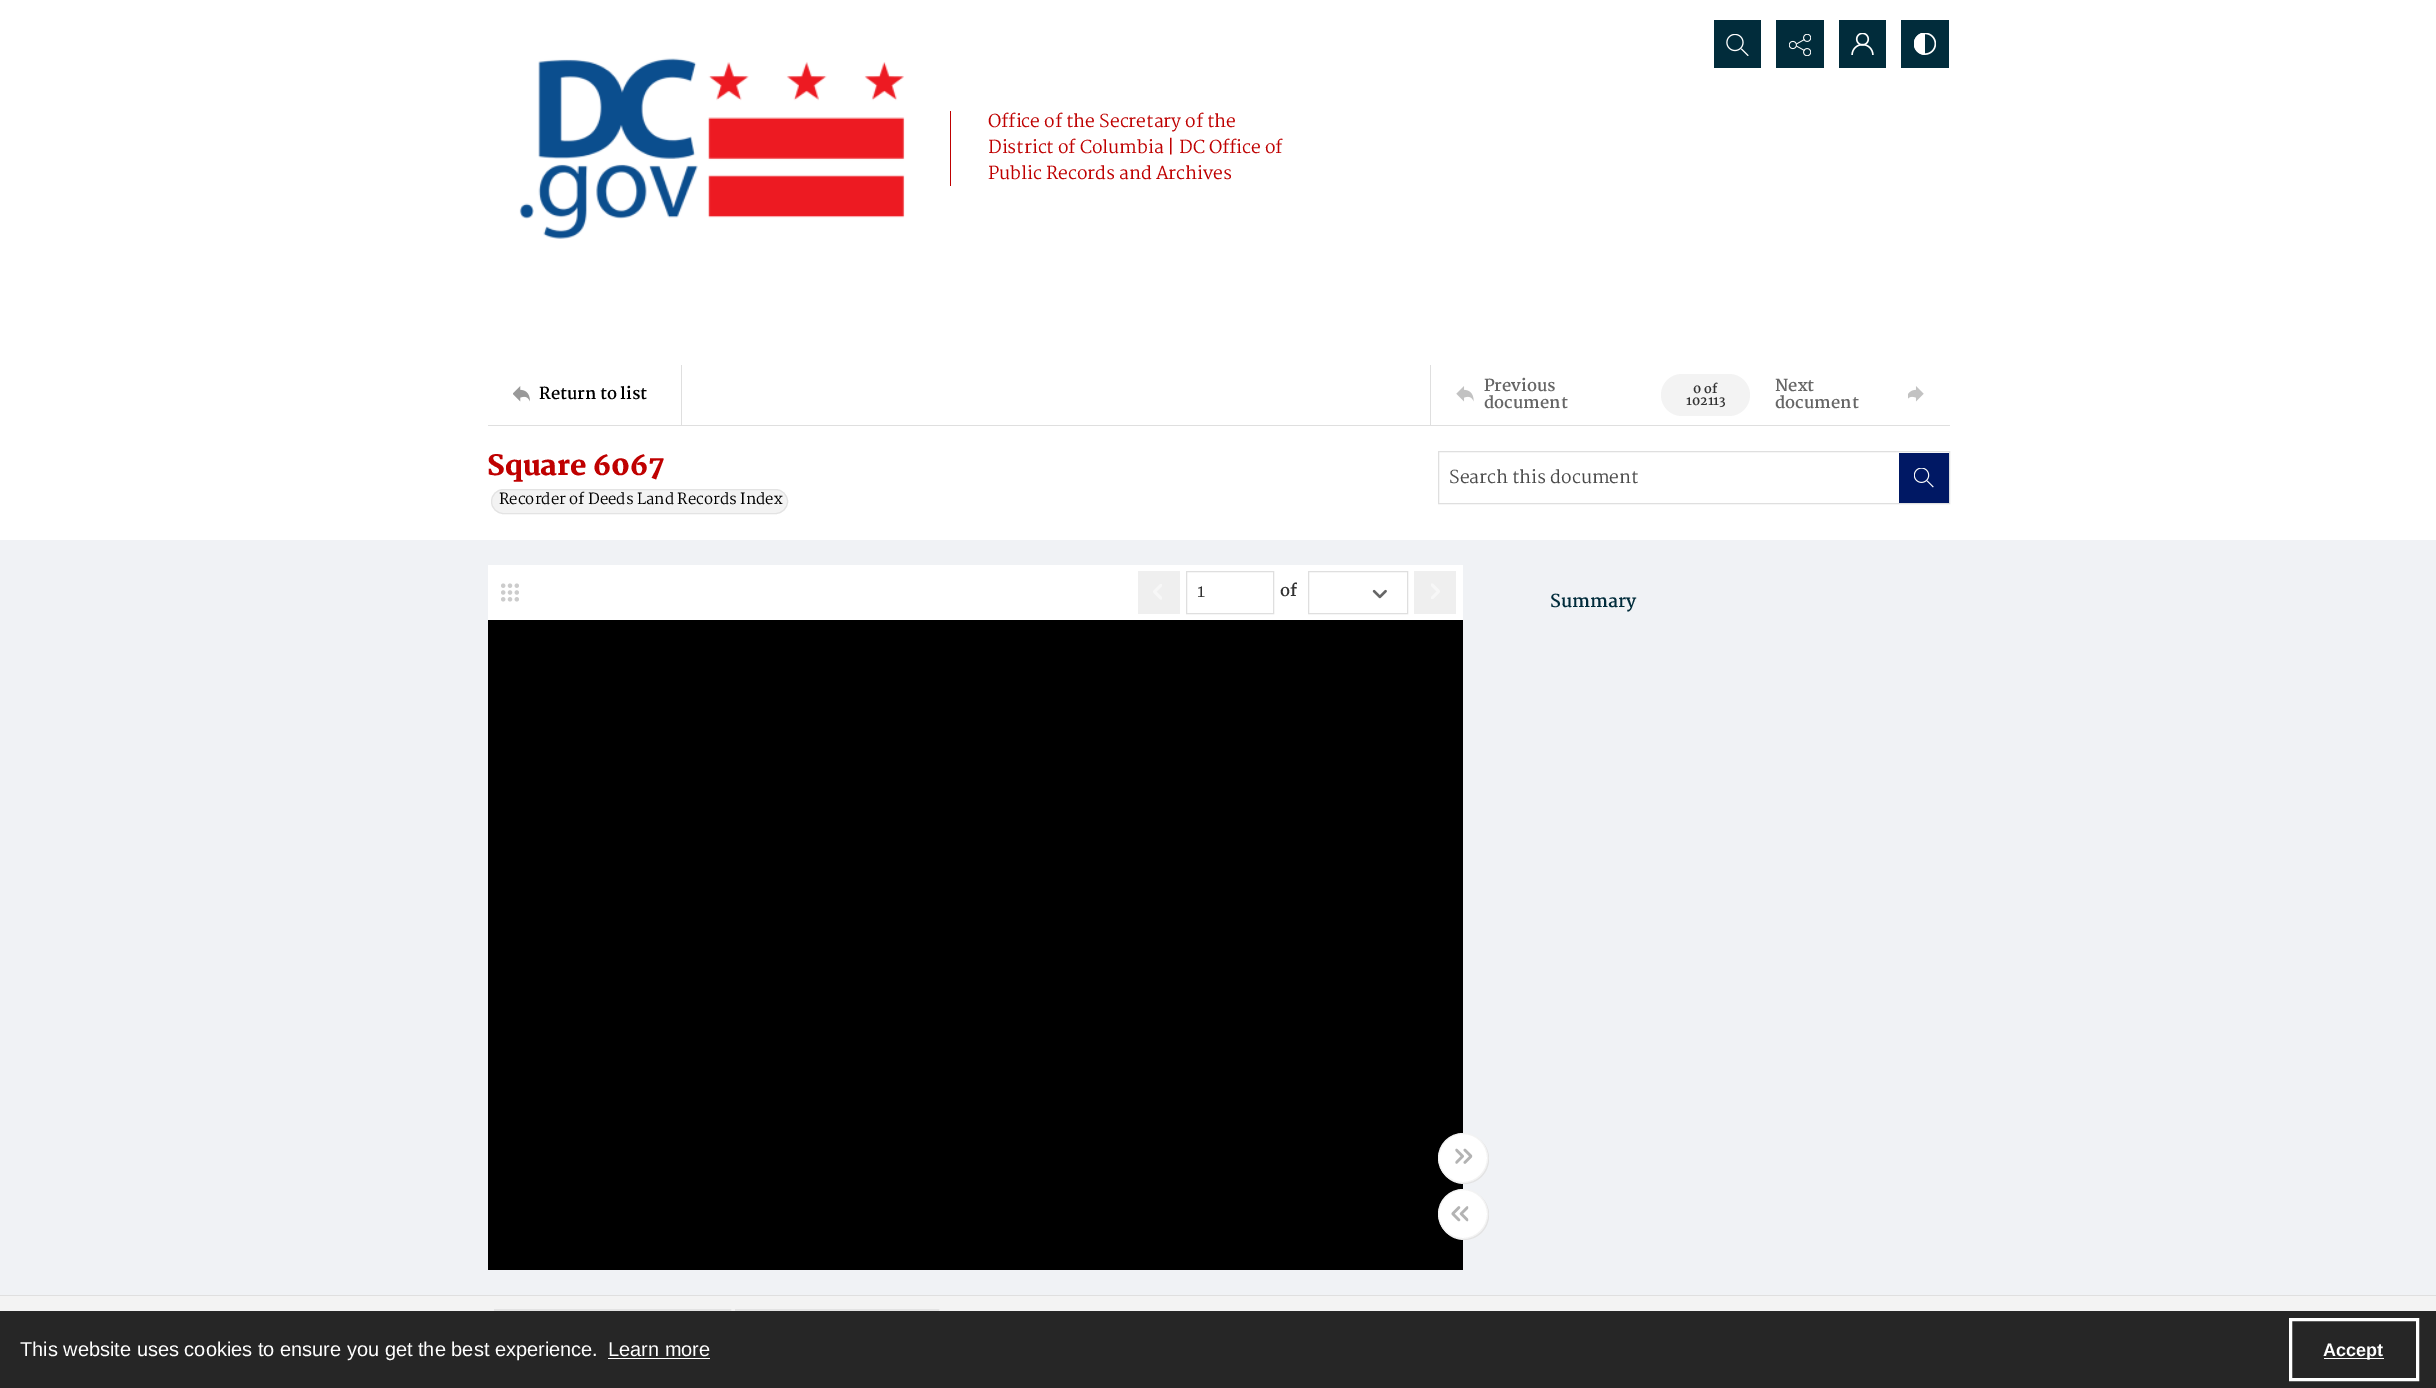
%!PS
<< /PageSize [2436 1388] >> setpagedevice
/rgb { dup -16 bitshift 255 div exch dup -8 bitshift 255 and 255 div exch 255 and 255 div setrgbcolor } def
/font { [ exch dup neg 0 0 3 -1 roll 0 0 ] selectfont } def
/text { moveto show } def
/circle { newpath 0 360 arc closepath } def
/roundrect { 5 dict begin { /r /h /w /y /x } { exch def } forall
  x r add y moveto x w add y 2 copy h add r arct x w add y h add x 1 index r arct
  x y h add x y r arct x y 2 copy exch w add exch r arct closepath end } def
/picture { 5 dict begin { /h /w /y /x /name } { exch def } forall
  gsave x y translate w h scale
  w h 8 [w 0 0 h 0 0] name (r) file false 3 colorimage grestore end } def
0 1388 translate 1 -1 scale
4 setmiterlimit
/s1 { /Martel-Regular 17.5 font 16#BF0000 rgb } def
/s2 { /Martel-Bold 16.25 font 16#000000 rgb } def
/s3 { /Martel-Bold 16.25 font 16#666666 rgb } def
/s4 { /Martel-Bold 12.5 font 16#323232 rgb } def
/s5 { /Martel-Black 27.5 font 16#BF0000 rgb } def
/s6 { /Martel-Regular 15 font 16#000000 rgb } def
/s7 { /Martel-Regular 17.5 font 16#4A4A4A rgb } def
/s8 { /Martel-Regular 17.5 font 16#323232 rgb } def
/s9 { /Martel-Bold 16.25 font 16#323232 rgb } def
/s10 { /Martel-Bold 17.5 font 16#012C3B rgb } def
/s11 { /LiberationSans-Regular 20 font 16#FFFFFF rgb } def
/s12 { /LiberationSans-Bold 18 font 16#FFFFFF rgb } def
16#FFFFFF rgb
0 0 2436 1388 rectfill
16#012C3B rgb
1714 20 47 48 rectfill
(pic1.raw) 1726 34 23 22 picture
1776 20 48 48 rectfill
(pic2.raw) 1789 34 22 22 picture
1839 20 47 48 rectfill
(pic3.raw) 1851 33 23 22 picture
1901 20 48 48 rectfill
(pic4.raw) 1914 33 22 22 picture
(pic5.raw) 519 58 386 181 picture
16#BF0000 rgb
950 111 1 75 rectfill
s1
(Office of the Secretary of the) 988 127 text
(District of Columbia | DC Office of) 988 153 text
(Public Records and Archives) 988 179 text
16#DFDFDF rgb
488 425 1462 1 rectfill
(pic6.raw) 513 386 17 16 picture
s2
(Return to list) 539 399 text
16#DFDFDF rgb
681 365 1 60 rectfill
1430 365 1 60 rectfill
(pic7.raw) 1456 386 18 16 picture
s3
(Previous) 1484 391 text
(document) 1484 408 text
16#F3F3F3 rgb
1661 374 89 42 21 roundrect fill
s4
(0 of) 1693 393 text
(102113) 1686 405 text
s3
(Next) 1775 391 text
(document) 1775 408 text
(pic8.raw) 1908 386 16 16 picture
16#F0F2F5 rgb
0 540 2436 755 rectfill
s5
(Square 6067) 487 475 text
16#F3F3F3 rgb
491.5 489.5 296 24 12 roundrect gsave fill grestore
16#E3E3E3 rgb
stroke
s6
(Recorder of Deeds Land Records Index) 499 504 text
16#DFDFDF rgb
1438.5 451.5 511 52 rectstroke
s7
(Search this document) 1449 483 text
16#001864 rgb
1899 453 50 50 rectfill
(pic9.raw) 1914 468 20 20 picture
16#FFFFFF rgb
488 565 975 55 rectfill
(pic10.raw) 501 583 18 19 picture
16#EFEFEF rgb
1138 571 42 43 rectfill
(pic11.raw) 1153 584 9 16 picture
16#DFDFDF rgb
1186.5 571.5 87 42 rectstroke
s8
(1) 1197 597 text
s9
(of) 1280 596 text
(pic12.raw) 1372 589 15 10 picture
16#DFDFDF rgb
1308.5 571.5 99 42 rectstroke
16#EFEFEF rgb
1414 571 42 43 rectfill
(pic13.raw) 1431 583 9 16 picture
16#000000 rgb
488 620 975 650 rectfill
16#E3E3E3 rgb
1464 1159 25 circle fill
16#FFFFFF rgb
1463 1158 24.5 circle gsave fill grestore
16#F3F3F3 rgb
stroke
(pic14.raw) 1455 1148 18 16 picture
16#E3E3E3 rgb
1464 1215 25 circle fill
16#FFFFFF rgb
1463 1214 24.5 circle gsave fill grestore
16#F3F3F3 rgb
stroke
(pic15.raw) 1451 1206 18 16 picture
s10
(Summary) 1550 607 text
16#F3F3F3 rgb
0 1296 2436 15 rectfill
16#DFDFDF rgb
0 1295 2436 1 rectfill
16#E3E3E3 rgb
3 setlinewidth
495.5 1310.5 234 39 rectstroke
736.5 1310.5 201 39 rectstroke
16#262626 rgb
0 1311 2436 77 rectfill
s11
(This website uses cookies to ensure you get the best experience.) 20 1356 text
(Learn more) 608 1356 text
608 1358 102 1 rectfill
2290.5 1319.5 127 60 rectstroke
2324 1358 60 1 rectfill
s12
(Accept) 2323 1356 text
showpage
